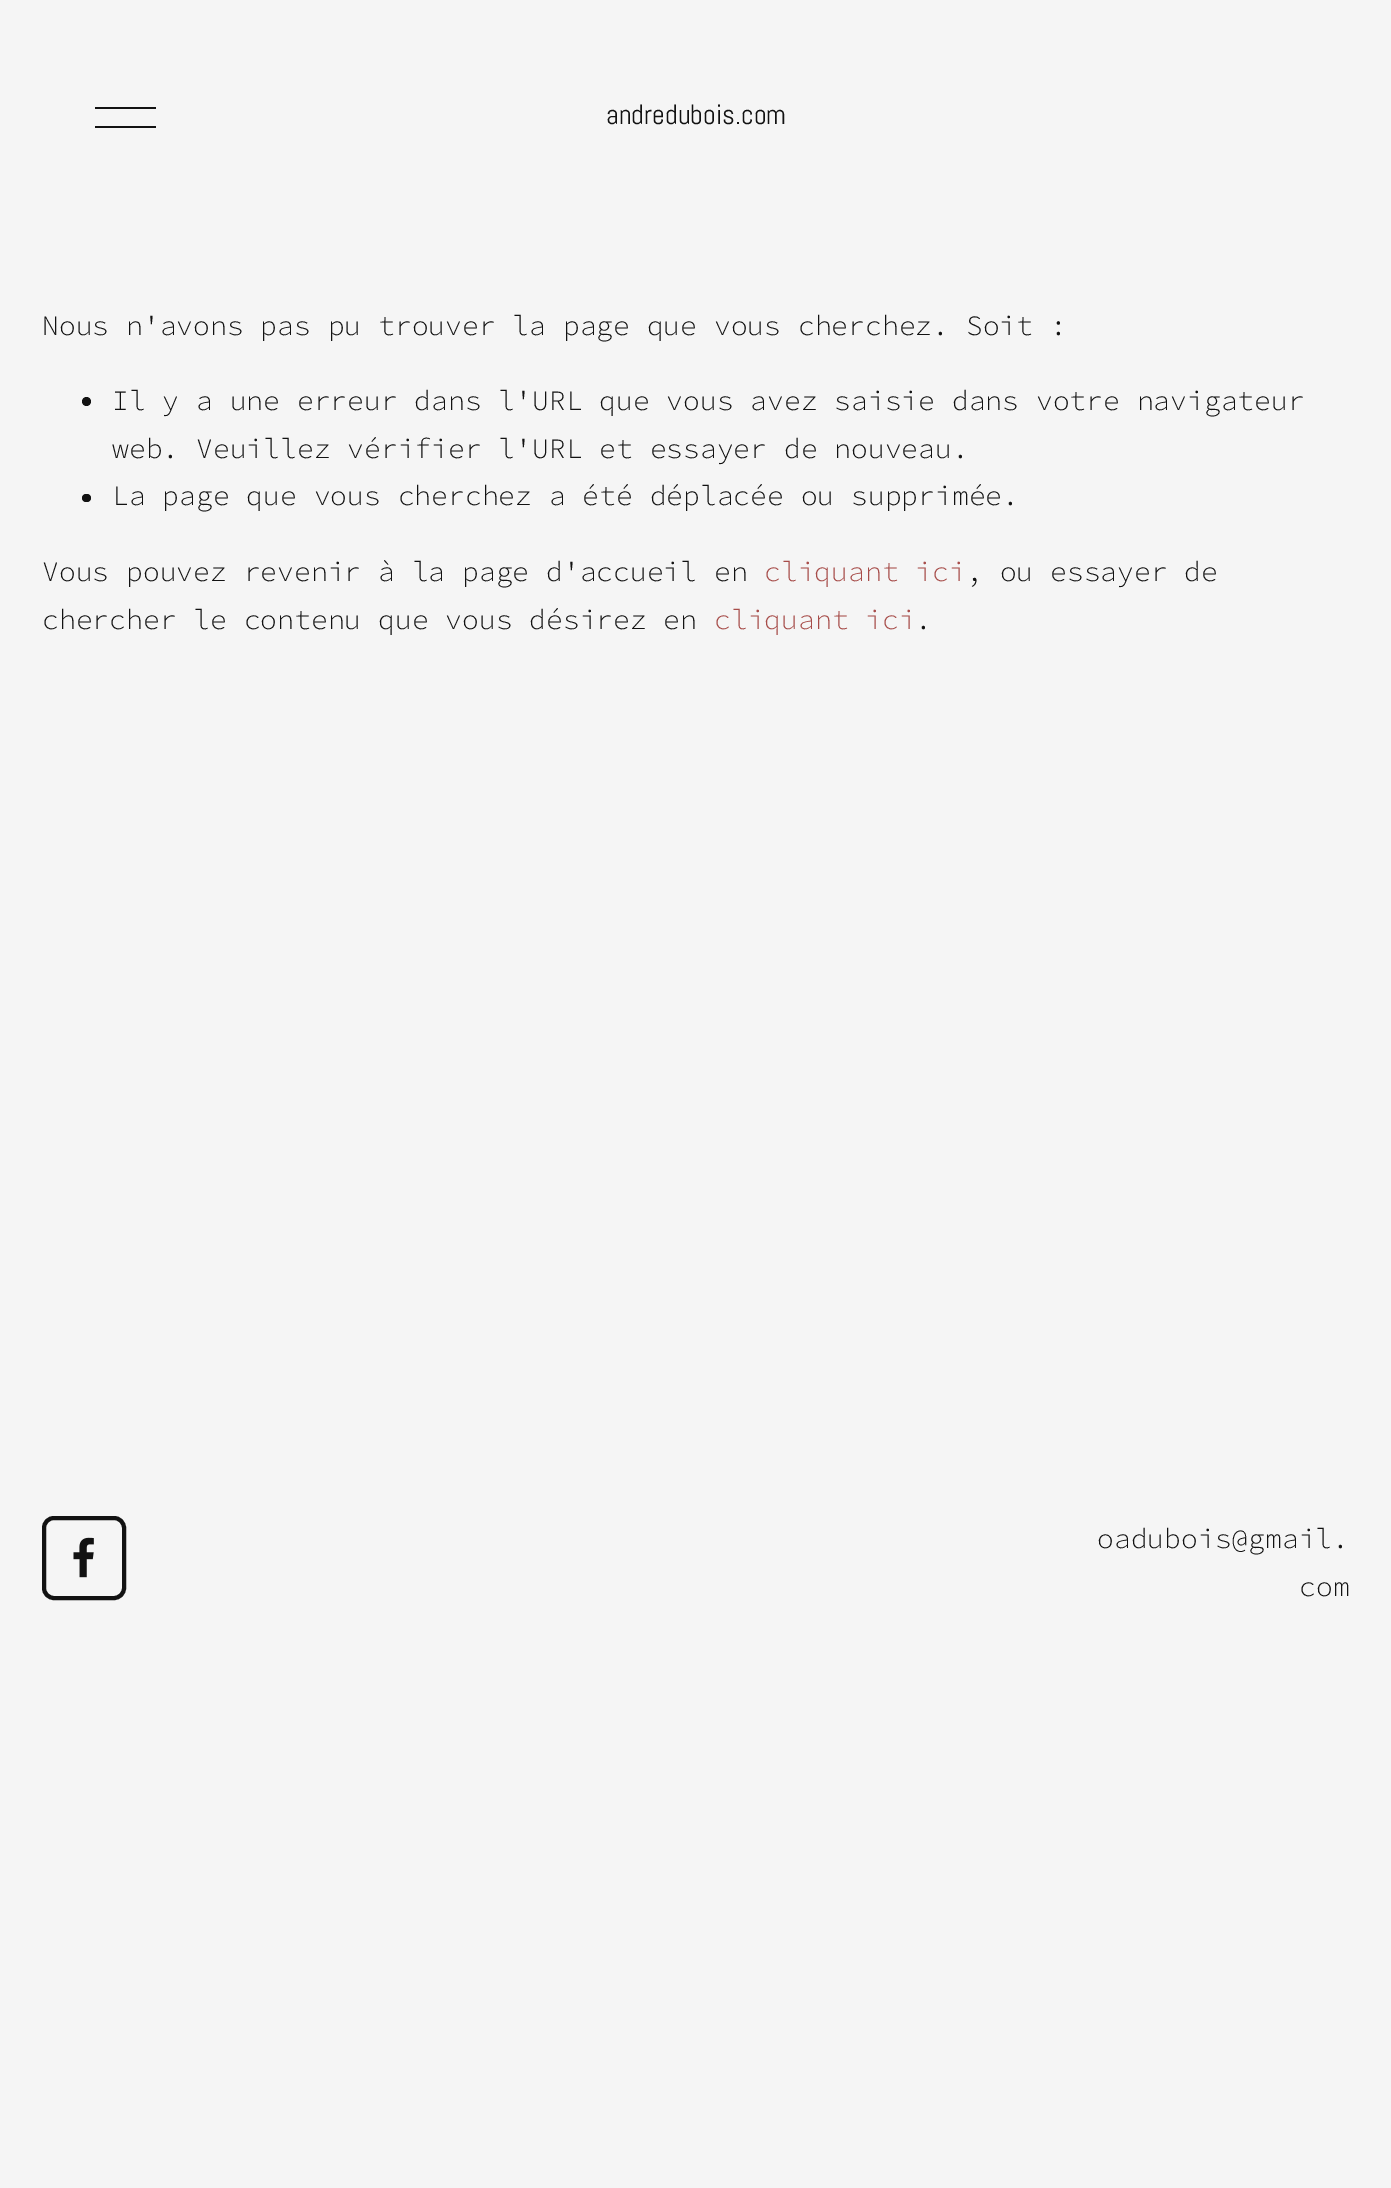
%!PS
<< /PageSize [1391 2188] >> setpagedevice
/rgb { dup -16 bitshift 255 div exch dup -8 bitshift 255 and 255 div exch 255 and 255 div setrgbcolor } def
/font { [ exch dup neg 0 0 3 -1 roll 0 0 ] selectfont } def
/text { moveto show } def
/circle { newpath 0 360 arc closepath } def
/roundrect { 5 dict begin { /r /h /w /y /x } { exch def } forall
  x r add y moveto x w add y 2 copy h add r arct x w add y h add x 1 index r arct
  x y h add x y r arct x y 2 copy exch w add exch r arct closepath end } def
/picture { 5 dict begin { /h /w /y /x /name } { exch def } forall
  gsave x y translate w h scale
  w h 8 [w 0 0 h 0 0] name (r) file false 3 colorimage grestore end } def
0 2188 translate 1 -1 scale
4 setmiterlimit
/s1 { /Abel-Regular 28 font 16#121212 rgb } def
/s2 { /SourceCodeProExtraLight-Light 28 font 16#121212 rgb } def
/s3 { /SourceCodeProExtraLight-Light 28 font 16#A74D4A rgb } def
16#F5F5F5 rgb
0 0 1391 2188 rectfill
16#121212 rgb
95 107 61 2 rectfill
95 126 61 2 rectfill
s1
(andredubois.com) 606 124 text
s2
(Nous n'avons pas pu trouver la page que vous cherchez. Soit :) 42 335 text
86.5 401.5 4.5 circle fill
(Il y a une erreur dans l'URL que vous avez saisie dans votre navigateur) 112 410 text
(web. Veuillez vérifier l'URL et essayer de nouveau.) 112 458 text
82 494 9 8 4 roundrect fill
(La page que vous cherchez a été déplacée ou supprimée.) 112 505 text
(Vous pouvez revenir à la page d'accueil en) 42 581 text
s3
(cliquant ici) 764 581 text
s2
(, ou essayer de) 966 581 text
(chercher le contenu que vous désirez en) 42 629 text
s3
(cliquant ici) 714 629 text
s2
(.) 915 629 text
4 setlinewidth
44 1518 80 80 10 roundrect stroke
(pic1.raw) 73 1537 21 41 picture
(oadubois@gmail.) 1097 1548 text
(com) 1299 1596 text
showpage
